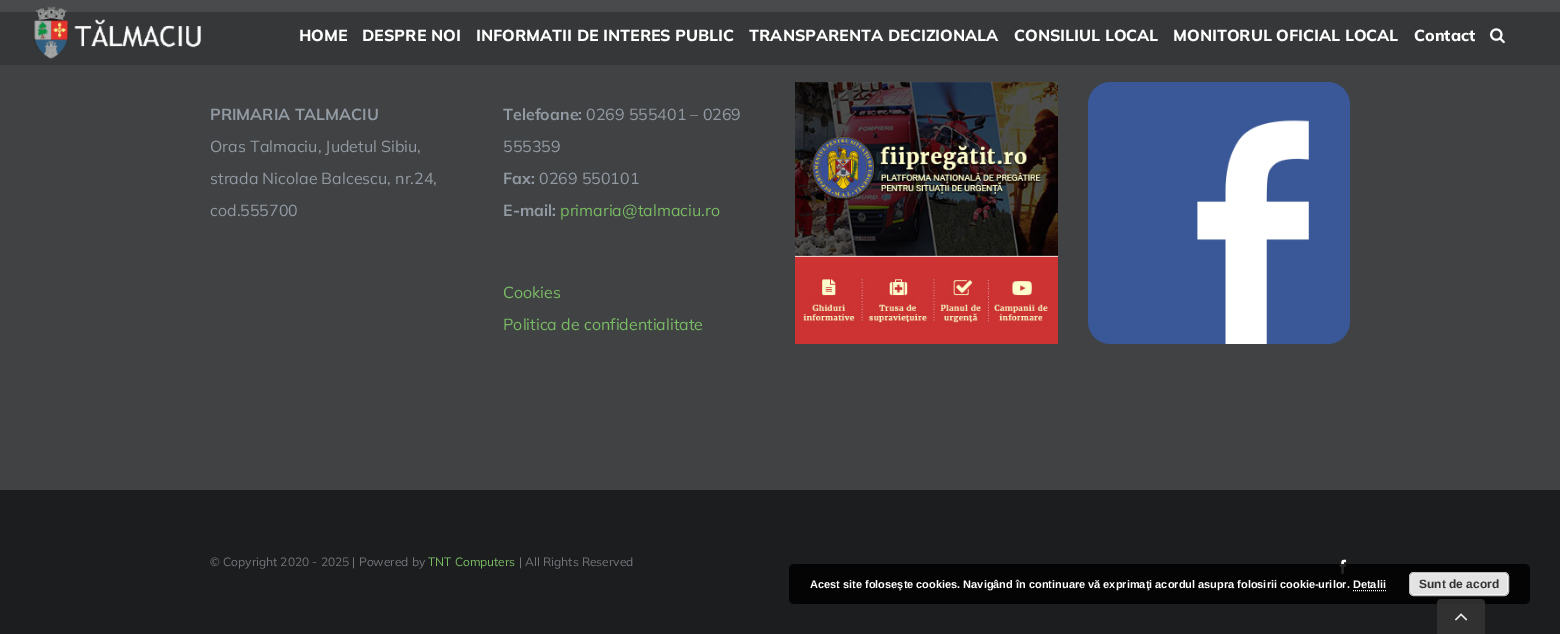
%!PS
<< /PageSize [1560 634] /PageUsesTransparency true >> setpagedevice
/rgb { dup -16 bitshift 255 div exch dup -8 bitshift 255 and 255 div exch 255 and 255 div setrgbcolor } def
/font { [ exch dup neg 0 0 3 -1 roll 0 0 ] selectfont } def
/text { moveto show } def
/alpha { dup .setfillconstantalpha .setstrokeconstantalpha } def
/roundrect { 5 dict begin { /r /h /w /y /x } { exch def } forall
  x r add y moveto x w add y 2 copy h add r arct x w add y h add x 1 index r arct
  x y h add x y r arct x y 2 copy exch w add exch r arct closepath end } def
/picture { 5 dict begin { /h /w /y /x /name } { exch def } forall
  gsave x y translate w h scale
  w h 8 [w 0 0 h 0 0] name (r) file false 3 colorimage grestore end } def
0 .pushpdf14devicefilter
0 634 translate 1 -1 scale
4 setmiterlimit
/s1 { /Mulish-ExtraBold 16 font 16#FFFFFF rgb } def
/s2 { /Mulish-Bold 16 font 16#929AA3 rgb } def
/s3 { /Mulish-Regular 16 font 16#929AA3 rgb } def
/s4 { /Mulish-Regular 16 font 16#7ABC64 rgb } def
/s5 { /Mulish-Regular 12 font 16#72767A rgb } def
/s6 { /Mulish-Regular 12 font 16#7ABC64 rgb } def
/s7 { /LiberationSans-Bold 11 font 16#FFFFFF rgb } def
/s8 { /LiberationSans-Bold 12 font 16#333333 rgb } def
16#494A4B rgb
0 0 1560 634 rectfill
16#363738 rgb
0 12 1560 53 rectfill
(pic1.raw) 34 6 167 53 picture
s1
(HOME) 299 41 text
(DESPRE NOI) 362 41 text
(INFORMATII DE INTERES PUBLIC) 476 41 text
(TRANSPARENTA DECIZIONALA) 749 41 text
(CONSILIUL LOCAL) 1014 41 text
(MONITORUL OFICIAL LOCAL) 1173 41 text
(Contact) 1414 41 text
(pic2.raw) 1490 28 15 16 picture
16#404243 rgb
0 65 1560 425 rectfill
s2
(PRIMARIA TALMACIU) 210 120 text
s3
(Oras Talmaciu, Judetul Sibiu,) 210 152 text
(strada Nicolae Balcescu, nr.24,) 210 184 text
(cod.555700) 210 216 text
s2
(Telefoane:) 503 120 text
s3
(0269 555401 – 0269) 586 120 text
(555359) 503 152 text
s2
(Fax:) 503 184 text
s3
(0269 550101) 539 184 text
s2
(E-mail:) 503 216 text
s4
(primaria@talmaciu.ro) 560 216 text
(Cookies) 503 298 text
(Politica de confidentialitate) 503 330 text
(pic3.raw) 795 82 263 262 picture
(pic4.raw) 1088 82 262 262 picture
16#1C1D1E rgb
0 490 1560 144 rectfill
s5
(© Copyright 2020 - 2025 | Powered by) 210 566 text
s6
(TNT Computers) 428 566 text
s5
(| All Rights Reserved) 519 566 text
(pic5.raw) 1339 559 8 15 picture
0.85 alpha
16#000000 rgb
789 564 741 40 5 roundrect fill
1 alpha
s7
(Acest site foloseşte cookies. Navigând în continuare vă exprimaţi acordul asupra folosirii cookie-urilor. Detalii) 810 588 text
16#E3E3E3 rgb
1409 572 100 24 5 roundrect fill
16#F6F6F6 rgb
1410.5 573.5 97 21 3.5 roundrect stroke
16#BBBBBB rgb
1409.5 572.5 99 23 4.5 roundrect stroke
s8
(Sunt de acord) 1419 588 text
16#FFFFFF rgb
[1 1] 0 setdash
1353 590.5 moveto 1386 590.5 lineto stroke
0.9 alpha
16#333333 rgb
1441 599 moveto 1481 599 lineto 1483 599 1485 601 1485 603 curveto 1485 634 lineto 1437 634 lineto 1437 603 lineto 1437 601 1439 599 1441 599 curveto closepath fill
1 alpha
(pic6.raw) 1455 613 13 8 picture
.poppdf14devicefilter showpage
